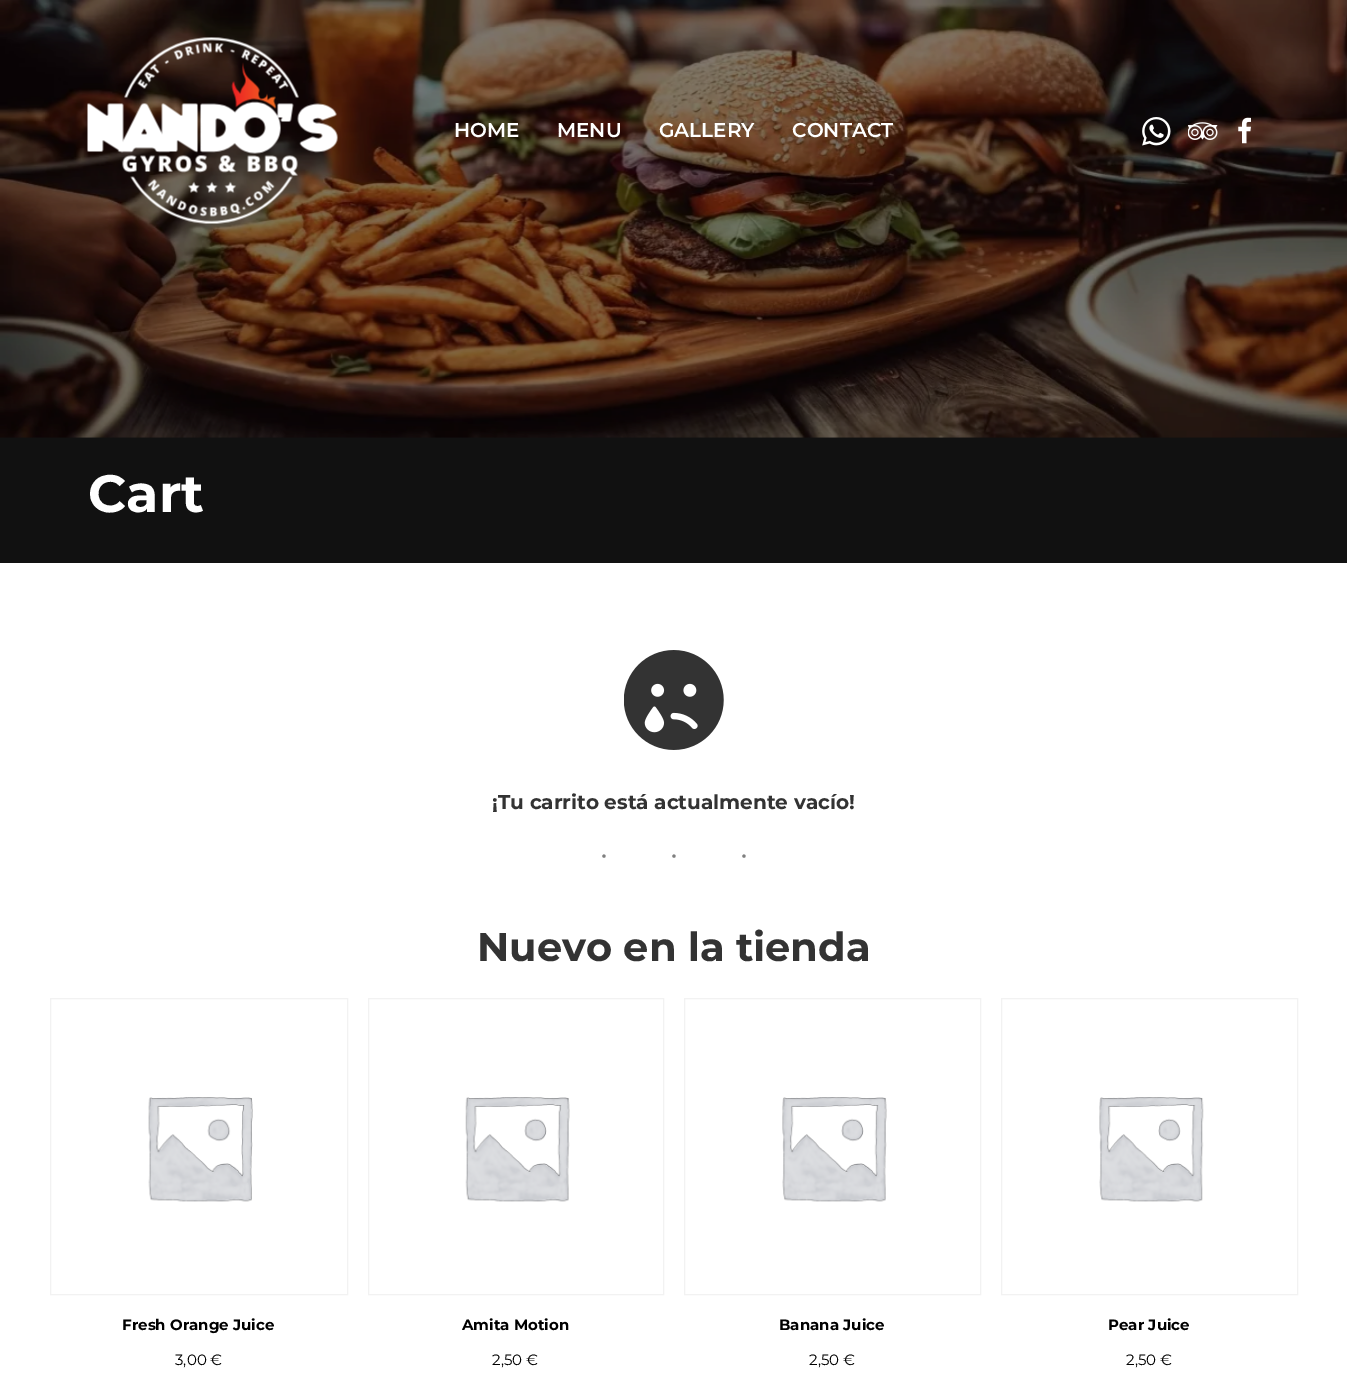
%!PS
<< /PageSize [1347 1398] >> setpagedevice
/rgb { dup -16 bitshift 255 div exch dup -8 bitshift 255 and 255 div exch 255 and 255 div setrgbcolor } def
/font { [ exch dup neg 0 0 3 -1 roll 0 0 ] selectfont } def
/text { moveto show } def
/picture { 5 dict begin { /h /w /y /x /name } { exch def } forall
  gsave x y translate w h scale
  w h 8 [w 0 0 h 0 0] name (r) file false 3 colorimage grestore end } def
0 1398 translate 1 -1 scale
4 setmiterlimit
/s1 { /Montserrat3-Thin 20 font 16#FFFFFF rgb } def
/s2 { /Montserrat-Thin 52.5 font 16#FFFFFF rgb } def
/s3 { /Montserrat-Thin 20 font 16#333333 rgb } def
/s4 { /Montserrat-Thin 40 font 16#333333 rgb } def
/s5 { /Montserrat-Thin 15 font 16#000000 rgb } def
/s6 { /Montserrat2-Thin 15 font 16#000000 rgb } def
16#FFFFFF rgb
0 0 1347 1398 rectfill
16#111111 rgb
0 437 1347 126 rectfill
(pic1.raw) 0 0 1347 438 picture
(pic2.raw) 87 37 251 187 picture
s1
(HOME) 454 137 text
(MENU) 557 137 text
(GALLERY) 659 137 text
(CONTACT) 792 137 text
(pic3.raw) 1142 117 29 29 picture
(pic4.raw) 1188 122 30 18 picture
(pic5.raw) 1238 117 13 27 picture
s2
(Cart) 88 512 text
(pic6.raw) 624 650 100 100 picture
s3
(¡Tu carrito está actualmente vacío!) 492 809 text
/LiberationSerif-Regular 30 font
16#808080 rgb
599 866 moveto 60 0 (···) ashow
s4
(Nuevo en la tienda) 477 961 text
16#F2F2F2 rgb
50.5 998.5 297 296 rectstroke
(pic7.raw) 148 1097 105 105 picture
s5
(Fresh Orange Juice) 122 1330 text
s6
(3,00 €) 175 1365 text
16#F2F2F2 rgb
368.5 998.5 295 296 rectstroke
(pic8.raw) 465 1097 105 105 picture
s5
(Amita Motion) 462 1330 text
s6
(2,50 €) 492 1365 text
16#F2F2F2 rgb
684.5 998.5 296 296 rectstroke
(pic9.raw) 782 1097 105 105 picture
s5
(Banana Juice) 779 1330 text
s6
(2,50 €) 809 1365 text
16#F2F2F2 rgb
1001.5 998.5 296 296 rectstroke
(pic10.raw) 1099 1097 105 105 picture
s5
(Pear Juice) 1108 1330 text
s6
(2,50 €) 1126 1365 text
showpage
